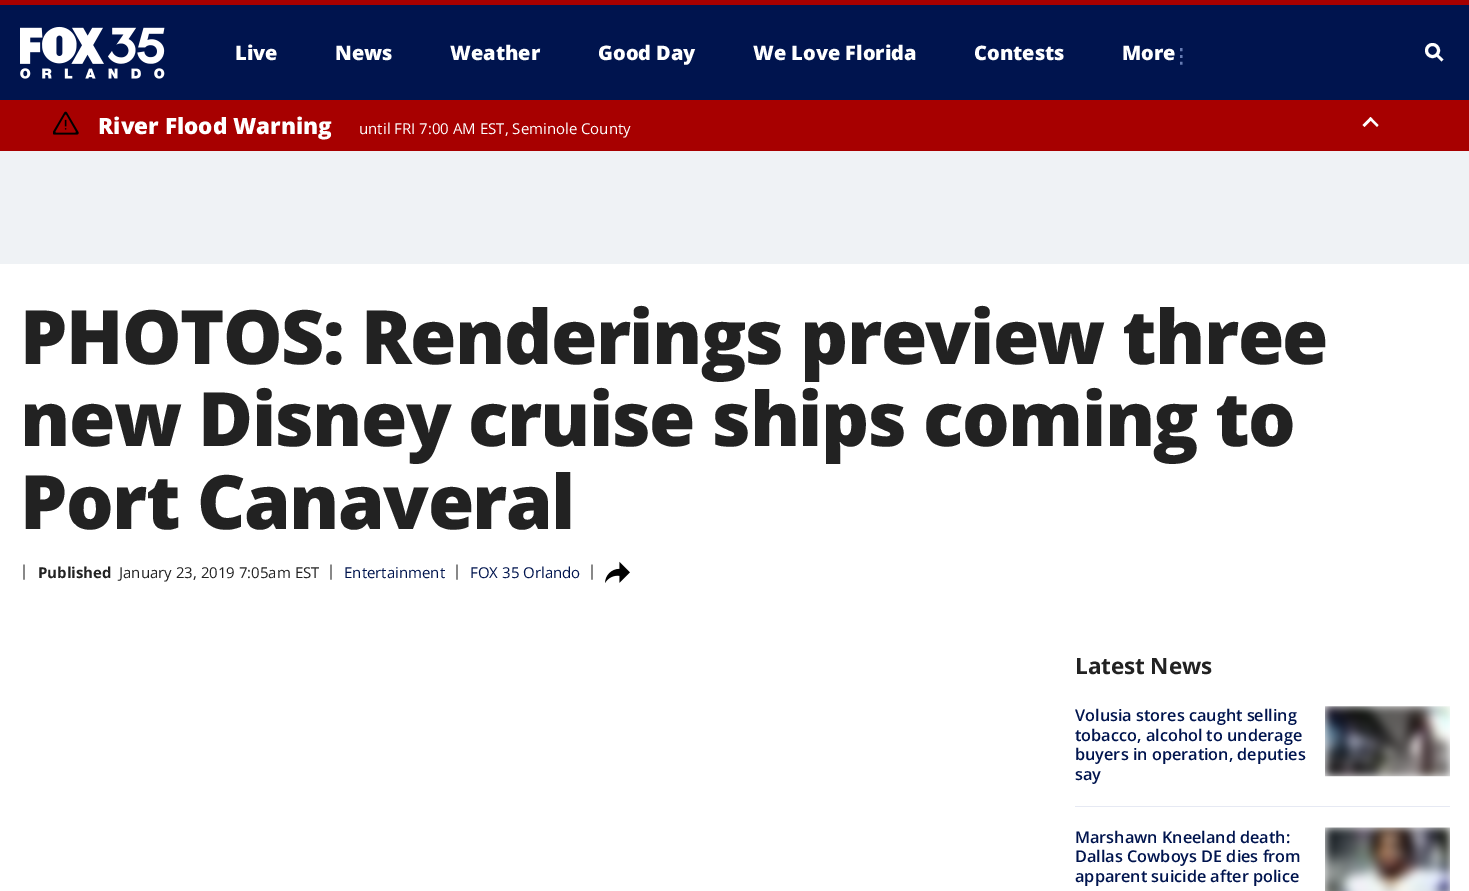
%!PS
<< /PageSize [1469 891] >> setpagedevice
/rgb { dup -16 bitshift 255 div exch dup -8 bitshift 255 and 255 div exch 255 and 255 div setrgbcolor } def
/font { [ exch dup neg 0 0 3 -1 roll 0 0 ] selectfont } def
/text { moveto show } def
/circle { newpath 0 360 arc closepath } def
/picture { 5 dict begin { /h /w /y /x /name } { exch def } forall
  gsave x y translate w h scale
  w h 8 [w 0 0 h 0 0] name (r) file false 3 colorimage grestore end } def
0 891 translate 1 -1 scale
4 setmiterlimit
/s1 { /OpenSans-ExtraBold 20 font 16#FFFFFF rgb } def
/s2 { /DejaVuSans-Bold 20 font 16#667BB3 rgb } def
/s3 { /OpenSans-ExtraBold 22.5 font 16#FFFFFF rgb } def
/s4 { /OpenSans-Regular 15 font 16#FFFFFF rgb } def
/s5 { /OpenSans-Regular 15 font 16#222222 rgb } def
/s6 { /OpenSans-Bold 15 font 16#222222 rgb } def
/s7 { /OpenSans-Regular 15 font 16#00144E rgb } def
/s8 { /OpenSans-SemiBold 16.25 font 16#00144E rgb } def
16#FFFFFF rgb
0 0 1469 891 rectfill
16#00144E rgb
0 5 1469 95 rectfill
16#A70000 rgb
0 0 1469 5 rectfill
(pic1.raw) 20 26 145 53 picture
s1
(Live) 235 60 text
(News) 335 60 text
(Weather) 450 60 text
(Good Day) 598 60 text
(We Love Florida) 753 60 text
(Contests) 974 60 text
(More) 1122 60 text
s2
(⋮) 1171 63 text
16#FFFFFF rgb
3 setlinewidth
1432.5 50.5 6 circle stroke
1437 53.5 moveto 1443.5 59.5 lineto 1441.5 61.5 lineto 1435.5 55.5 lineto closepath fill
16#A70000 rgb
0 100 1469 51 rectfill
(pic2.raw) 53 111 26 24 picture
s3
(River Flood Warning) 98 134 text
s4
(until FRI 7:00 AM EST, Seminole County) 359 134 text
1364.5 127 moveto 1362.5 125 lineto 1370.5 117 lineto 1372.5 119 lineto closepath fill
1377 127 moveto 1369 119 lineto 1370.5 117 lineto 1378.5 125 lineto closepath fill
16#EFF2F5 rgb
0 151 1469 113 rectfill
/OpenSans-ExtraBold 75 font
16#222222 rgb
20 364 moveto -1.5 0 (PHOTOS: Renderings preview three) ashow
20 446 moveto -1.5 0 (new Disney cruise ships coming to) ashow
20 529 moveto -1.5 0 (Port Canaveral) ashow
s5
(|) 20 576 text
s6
(Published) 38 578 text
s5
(January 23, 2019 7:05am EST) 119 578 text
(|) 327 576 text
s7
(Entertainment) 344 578 text
s5
(|) 453 576 text
s7
(FOX 35 Orlando) 470 578 text
s5
(|) 588 576 text
(pic3.raw) 605 561 25 22 picture
/OpenSans-Bold 22.5 font
1075 674 moveto -0.1 0 (Latest News) ashow
16#E6E9F3 rgb
1075 806 375 1 rectfill
s8
(Volusia stores caught selling) 1075 721 text
(tobacco, alcohol to underage) 1075 741 text
(buyers in operation, deputies) 1075 760 text
(say) 1075 780 text
(pic4.raw) 1325 706 125 71 picture
(Marshawn Kneeland death:) 1075 843 text
(Dallas Cowboys DE dies from) 1075 862 text
(apparent suicide after police) 1075 882 text
(pic5.raw) 1325 827 125 64 picture
showpage
